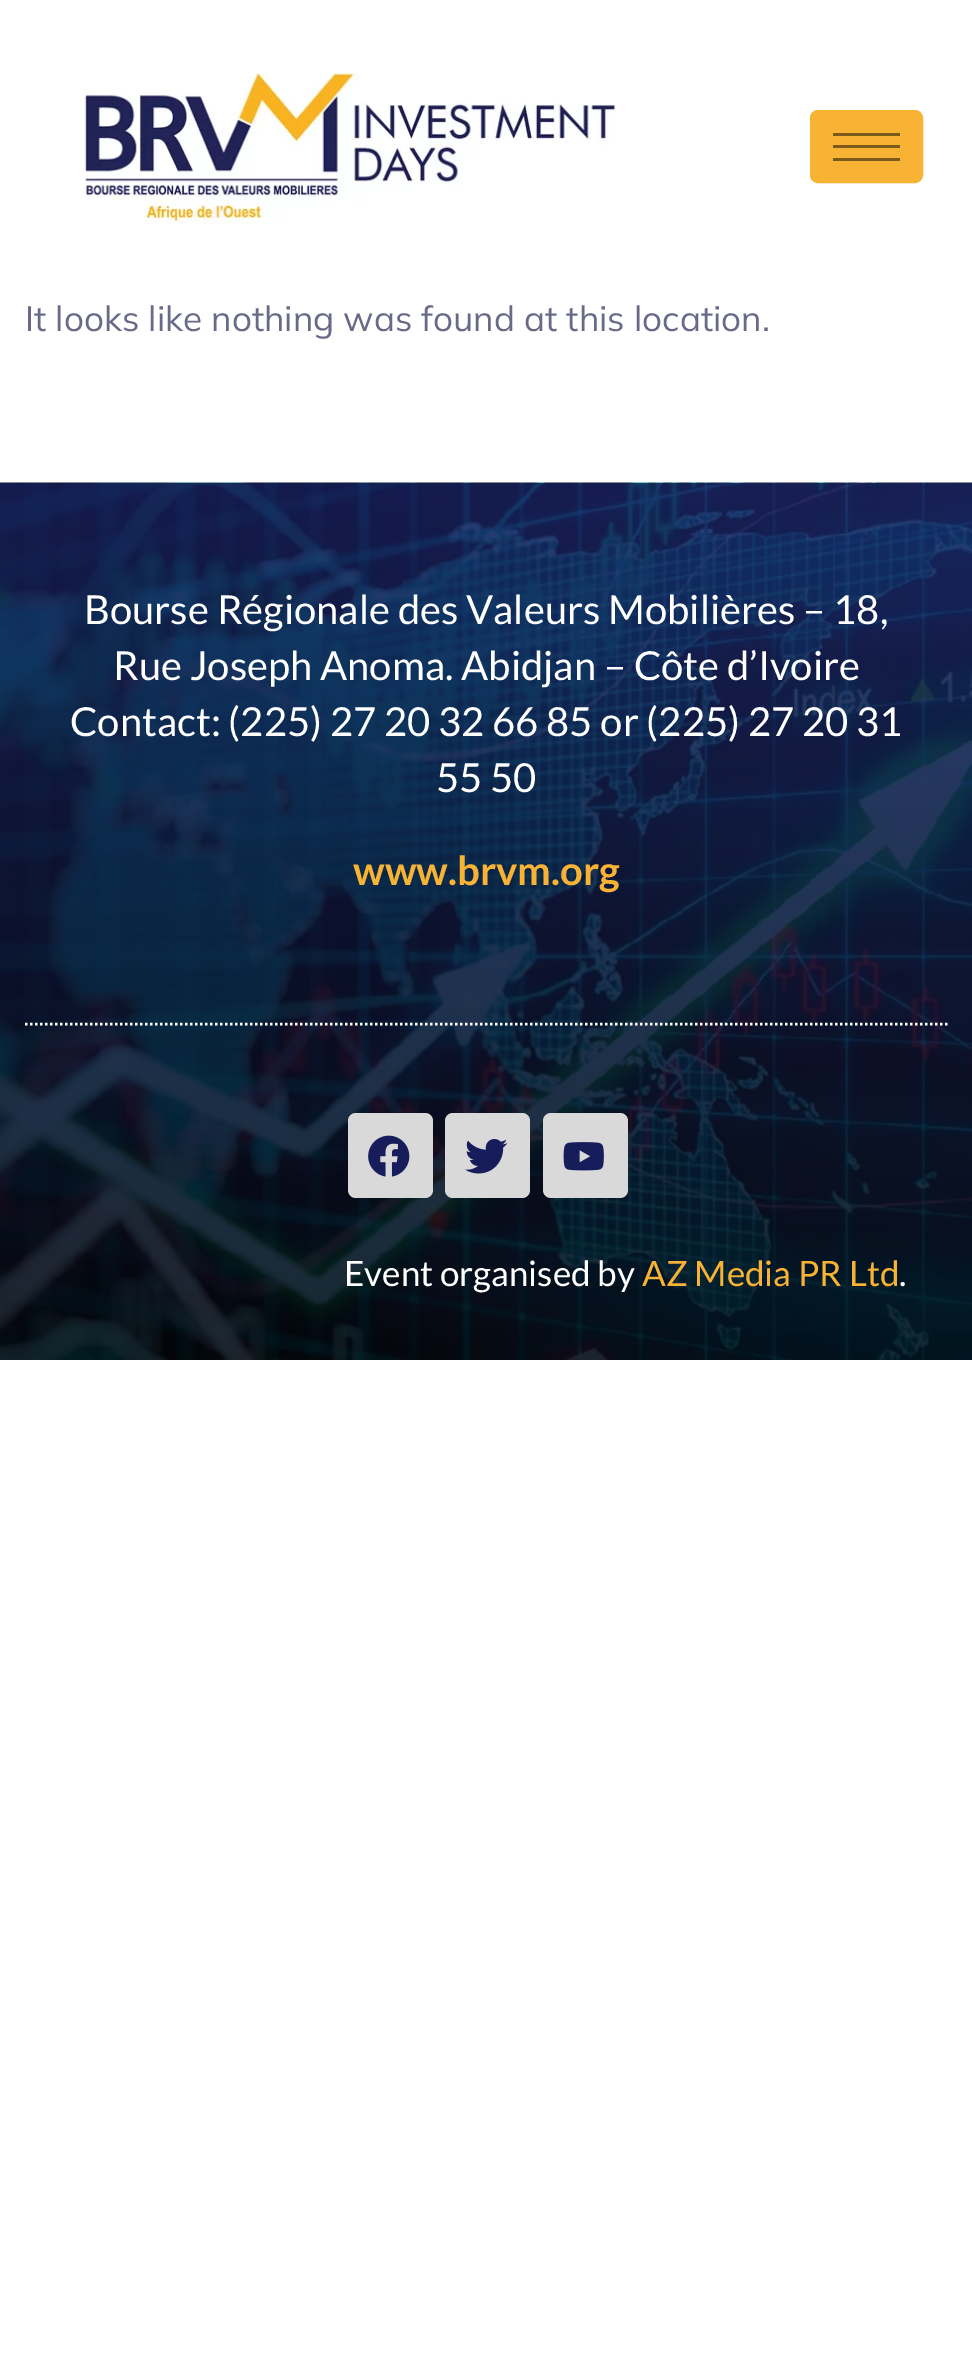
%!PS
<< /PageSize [972 2354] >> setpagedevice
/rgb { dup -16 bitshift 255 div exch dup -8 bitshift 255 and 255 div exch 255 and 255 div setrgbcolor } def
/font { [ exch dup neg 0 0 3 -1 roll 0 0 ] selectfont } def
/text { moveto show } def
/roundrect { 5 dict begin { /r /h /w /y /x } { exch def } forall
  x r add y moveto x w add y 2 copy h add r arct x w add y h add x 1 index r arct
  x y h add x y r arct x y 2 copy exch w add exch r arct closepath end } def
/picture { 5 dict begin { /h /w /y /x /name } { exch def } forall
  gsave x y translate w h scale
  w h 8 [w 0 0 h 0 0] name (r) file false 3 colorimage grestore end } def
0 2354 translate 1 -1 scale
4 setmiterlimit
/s1 { /Mulish-Regular 35 font 16#696A87 rgb } def
/s2 { /Lato-Regular 40 font 16#FFFFFF rgb } def
/s3 { /Lato-Bold 40 font 16#F8B334 rgb } def
/s4 { /Lato-Regular 35 font 16#FFFFFF rgb } def
/s5 { /Lato-Regular 35 font 16#F8B334 rgb } def
16#FFFFFF rgb
0 0 972 2354 rectfill
(pic1.raw) 82 72 535 152 picture
16#F8B334 rgb
811.5 111.5 110 70 6.5 roundrect gsave fill grestore
3 setlinewidth
stroke
16#7C5A1A rgb
833 133 67 3 rectfill
833 145 67 3 rectfill
833 158 67 3 rectfill
s1
(It looks like nothing was found at this location.) 25 331 text
(pic2.raw) 0 482 972 878 picture
s2
(Bourse Régionale des Valeurs Mobilières – 18,) 84 624 text
(Rue Joseph Anoma. Abidjan – Côte d’Ivoire) 113 680 text
(Contact: \(225\) 27 20 32 66 85 or \(225\) 27 20 31) 70 736 text
(55 50) 436 792 text
s3
(www.brvm.org) 353 885 text
16#FFFFFF rgb
2.5 setlinewidth
[2.5 2.5] 0 setdash
25 1024 moveto 947.5 1024 lineto stroke
16#D9D9D9 rgb
348 1113 85 85 8 roundrect fill
(pic3.raw) 368 1135 42 42 picture
445 1113 85 85 8 roundrect fill
(pic4.raw) 465 1139 43 35 picture
543 1113 85 85 8 roundrect fill
(pic5.raw) 563 1142 41 29 picture
s4
(Event organised by) 344 1286 text
s5
(AZ Media PR Ltd) 642 1286 text
s4
(.) 899 1286 text
showpage
